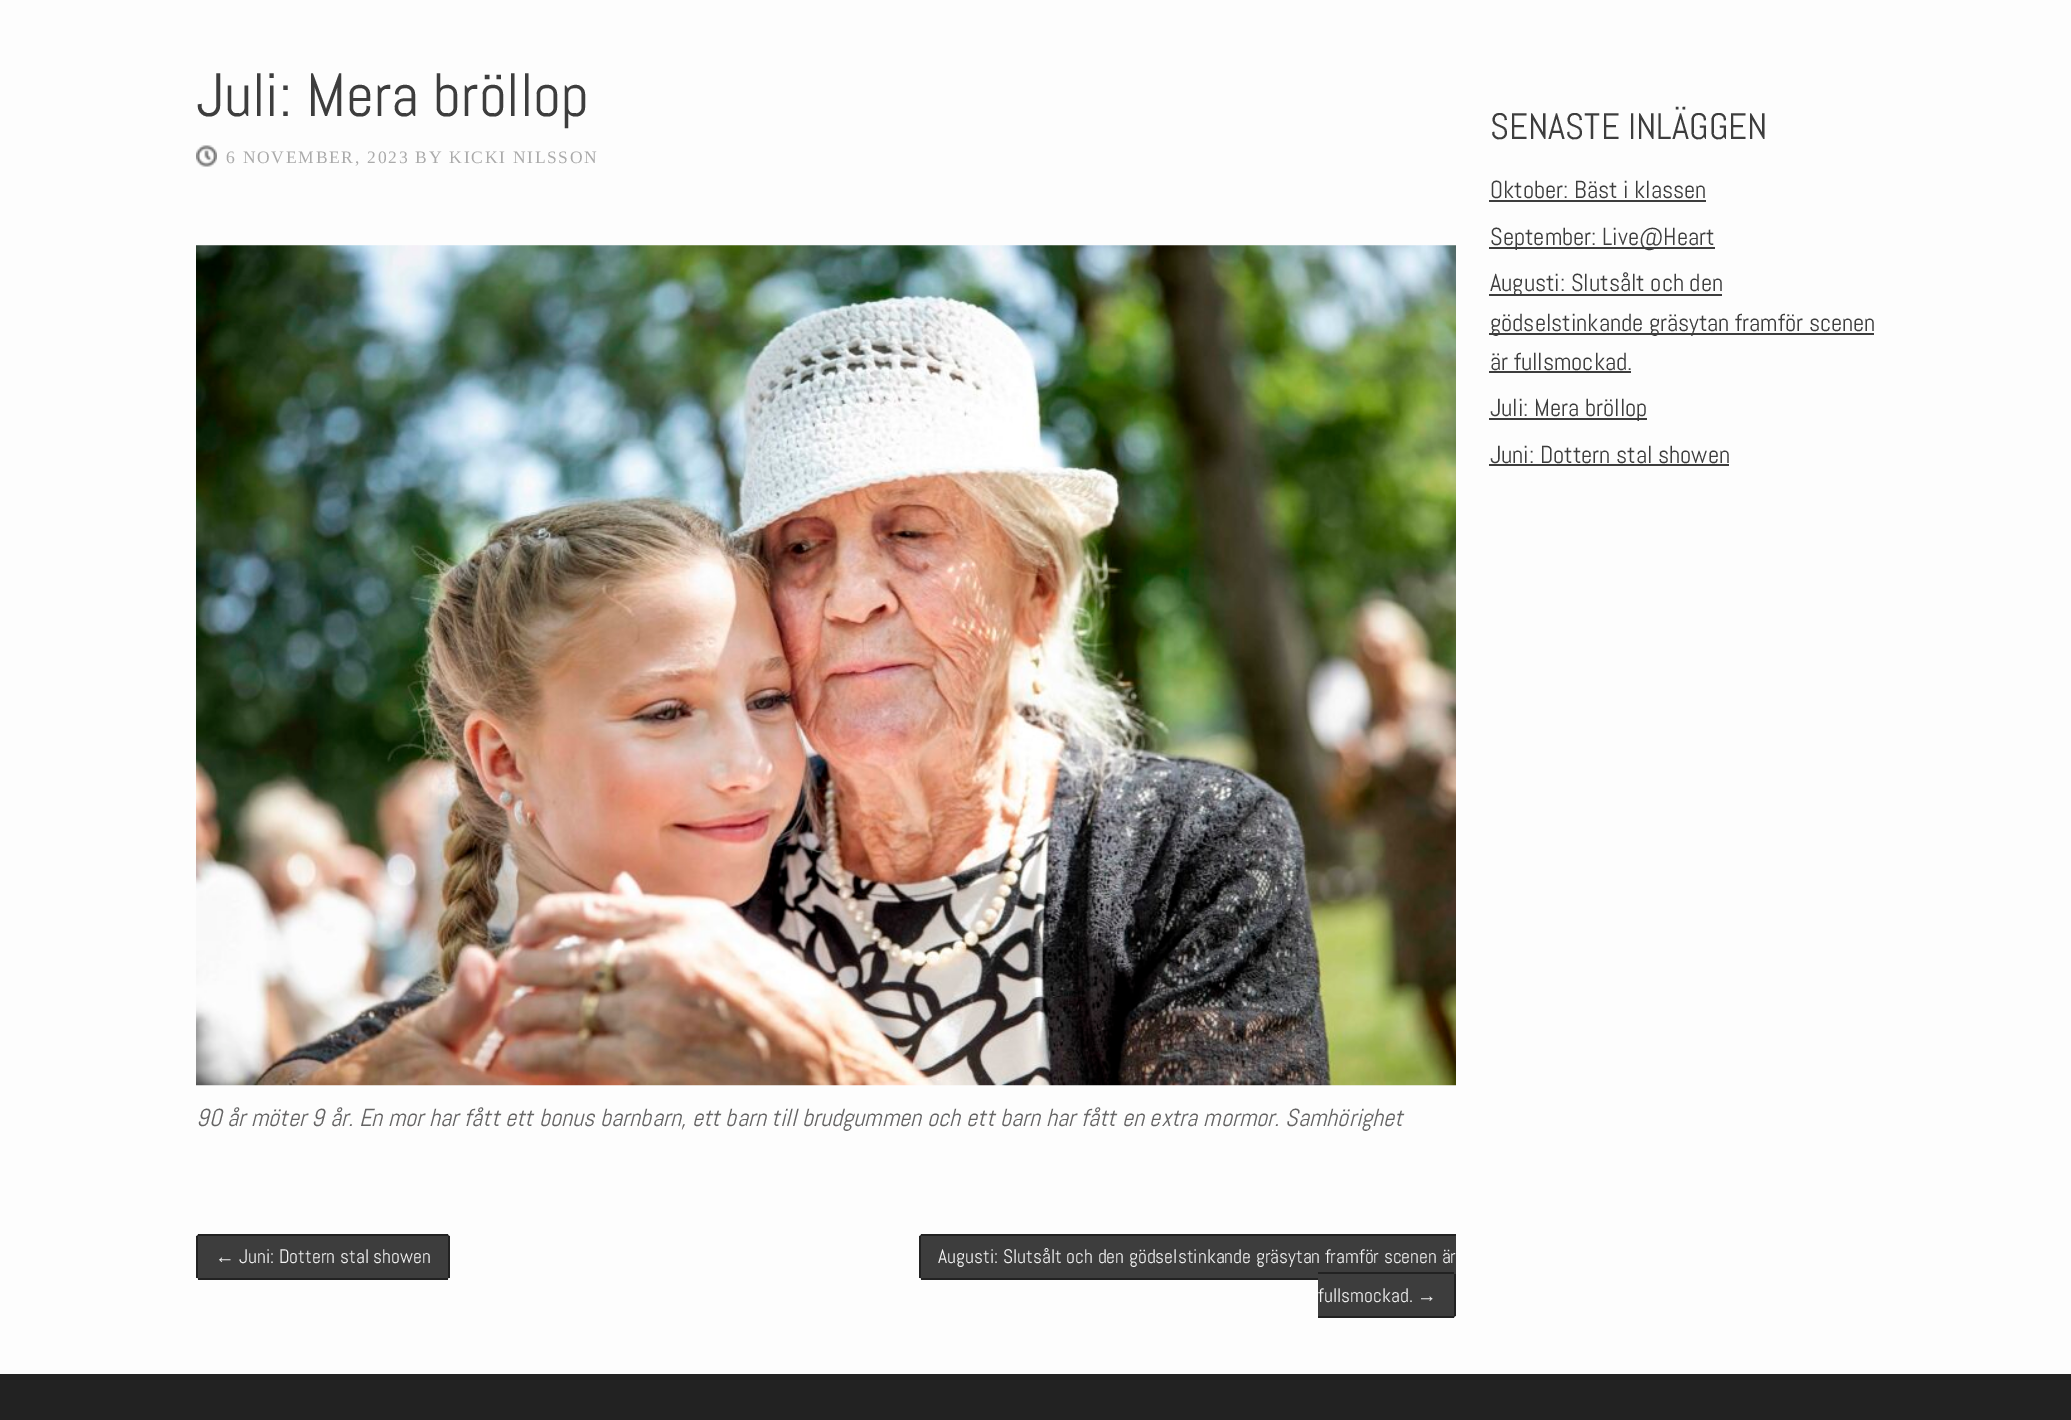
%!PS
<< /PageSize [2071 1420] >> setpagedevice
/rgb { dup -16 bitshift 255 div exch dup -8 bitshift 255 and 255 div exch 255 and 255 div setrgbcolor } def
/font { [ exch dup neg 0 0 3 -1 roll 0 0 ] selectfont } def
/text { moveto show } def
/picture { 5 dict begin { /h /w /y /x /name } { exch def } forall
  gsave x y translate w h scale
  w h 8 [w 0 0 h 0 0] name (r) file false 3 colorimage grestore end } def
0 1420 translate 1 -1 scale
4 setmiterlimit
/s1 { /Abel-Regular 61.25 font 16#3D3D3D rgb } def
/s2 { /Abel-Italic 24.5 font 16#656464 rgb } def
/s3 { /LiberationSerif-Regular 19.6 font 16#F3F3F3 rgb } def
/s4 { /Abel-Regular 19.6 font 16#F3F3F3 rgb } def
/s5 { /Abel-Regular 36.75 font 16#3D3D3D rgb } def
/s6 { /Abel-Regular 24.5 font 16#3D3D3D rgb } def
16#FDFDFD rgb
0 0 2071 1420 rectfill
s1
(Juli: Mera bröllop) 196 116 text
(pic1.raw) 196 145 21 22 picture
/LiberationSerif-Regular 17.5 font
16#AAAAAA rgb
226 163 moveto 1.75 0 (6 NOVEMBER, 2023 BY KICKI NILSSON) ashow
(pic2.raw) 196 245 1260 841 picture
s2
(90 år möter 9 år. En mor har fått ett bonus barnbarn, ett barn till brudgummen och ett barn har fått en extra mormor. Samhörighet) 196 1126 text
16#3D3D3D rgb
200 1234 moveto 235 1234 lineto 235 1279 lineto 200 1279 lineto 198 1279 196 1277 196 1275 curveto 196 1238 lineto 196 1236 198 1234 200 1234 curveto closepath fill
s3
(←) 215 1263 text
16#222222 rgb
198 1278 37 2 rectfill
196 1236 2 42 rectfill
16#3D3D3D rgb
235 1234 moveto 446 1234 lineto 448 1234 450 1236 450 1238 curveto 450 1275 lineto 450 1277 448 1279 446 1279 curveto 235 1279 lineto closepath fill
16#222222 rgb
235 1278 213 2 rectfill
s4
(Juni: Dottern stal showen) 239 1263 text
16#222222 rgb
198 1234 37 2 rectfill
235 1234 213 2 rectfill
448 1236 2 42 rectfill
16#3D3D3D rgb
923 1234 moveto 1456 1234 lineto 1456 1279 lineto 923 1279 lineto 921 1279 919 1277 919 1275 curveto 919 1238 lineto 919 1236 921 1234 923 1234 curveto closepath fill
s4
(Augusti: Slutsålt och den gödselstinkande gräsytan framför scenen är) 938 1263 text
16#222222 rgb
921 1234 535 2 rectfill
919 1236 2 42 rectfill
1318 1272 100 2 rectfill
16#3D3D3D rgb
1418 1272 moveto 1452 1272 lineto 1454 1272 1456 1274 1456 1276 curveto 1456 1314 lineto 1456 1316 1454 1318 1452 1318 curveto 1418 1318 lineto closepath fill
16#222222 rgb
1418 1272 36 2 rectfill
16#3D3D3D rgb
1318 1279 100 37 rectfill
s4
(fullsmockad.) 1318 1302 text
16#222222 rgb
921 1278 397 2 rectfill
s3
(→) 1417 1302 text
16#222222 rgb
1318 1316 100 2 rectfill
1454 1274 2 42 rectfill
1418 1316 36 2 rectfill
s5
(SENASTE INLÄGGEN) 1490 139 text
s6
(Oktober: Bäst i klassen) 1490 198 text
1489 200 217 2 rectfill
1489 247 226 2 rectfill
(September: Live@Heart) 1490 245 text
1489 294 233 2 rectfill
(Augusti: Slutsålt och den) 1490 291 text
1489 333 385 2 rectfill
(gödselstinkande gräsytan framför scenen) 1490 331 text
(är fullsmockad.) 1490 370 text
1489 371 142 2 rectfill
1489 418 158 2 rectfill
(Juli: Mera bröllop) 1490 416 text
(Juni: Dottern stal showen) 1490 463 text
1489 464 240 2 rectfill
16#222222 rgb
0 1374 2071 46 rectfill
showpage
